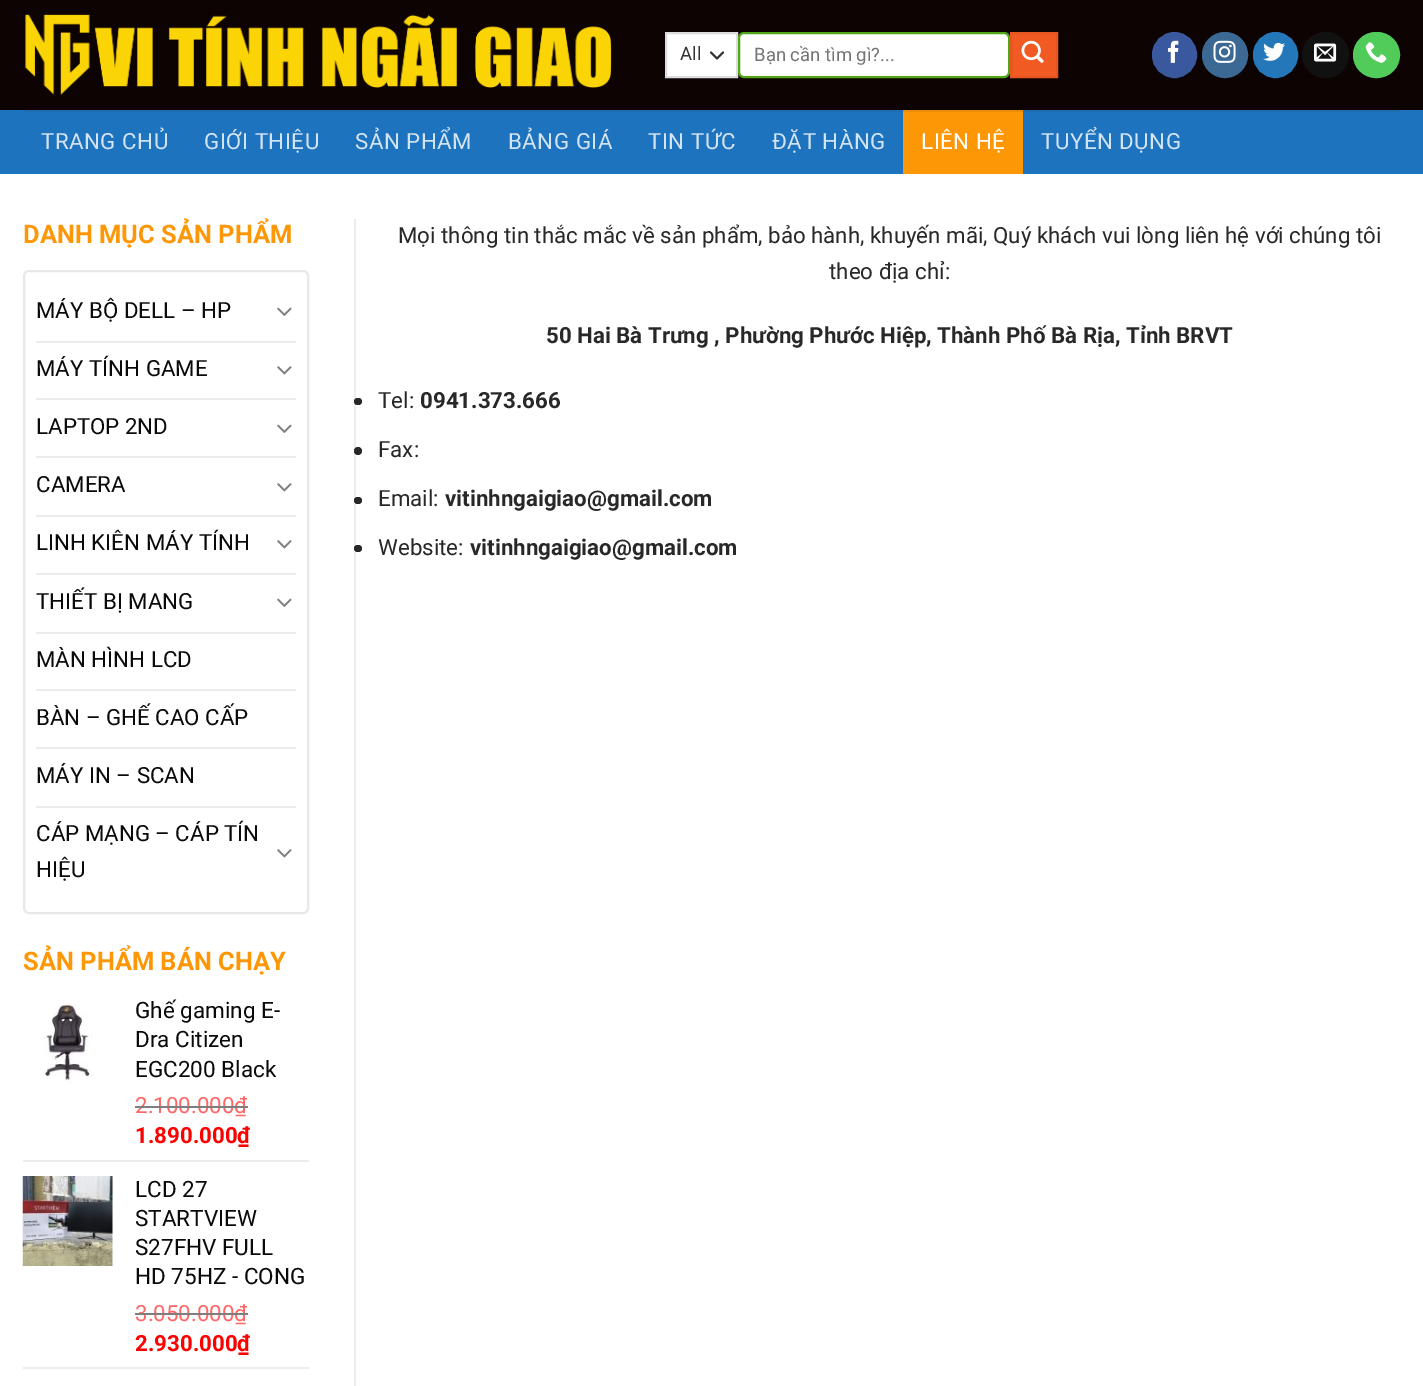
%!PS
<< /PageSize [1423 1386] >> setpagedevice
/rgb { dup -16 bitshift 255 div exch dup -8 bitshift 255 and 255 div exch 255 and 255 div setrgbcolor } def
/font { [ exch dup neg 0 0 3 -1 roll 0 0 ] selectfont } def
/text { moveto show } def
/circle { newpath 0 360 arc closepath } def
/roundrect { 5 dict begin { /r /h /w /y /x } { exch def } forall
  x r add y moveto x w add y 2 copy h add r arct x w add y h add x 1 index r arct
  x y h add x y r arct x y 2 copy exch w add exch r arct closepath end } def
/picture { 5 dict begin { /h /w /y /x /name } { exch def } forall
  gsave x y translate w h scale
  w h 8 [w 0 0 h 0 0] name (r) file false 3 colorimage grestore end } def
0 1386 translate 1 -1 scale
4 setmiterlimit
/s1 { /Roboto-Regular 18.5 font 16#333333 rgb } def
/s2 { /Roboto-Regular 18.5 font 16#757575 rgb } def
/s3 { /Roboto-Bold 25.5 font 16#FE9705 rgb } def
/s4 { /Roboto-Regular 22.3 font 16#0A0A0A rgb } def
/s5 { /Roboto-Regular 22.5 font 16#0A0A0A rgb } def
/s6 { /Roboto-Regular 22.3 font 16#FF6666 rgb } def
/s7 { /Roboto-Bold 22.3 font 16#FF0000 rgb } def
/s8 { /Roboto-Regular 22.3 font 16#282828 rgb } def
/s9 { /Roboto-Bold 22.3 font 16#282828 rgb } def
16#FFFFFF rgb
0 0 1423 1386 rectfill
16#0D0303 rgb
0 0 1423 110 rectfill
(pic1.raw) 25 14 587 81 picture
16#FFFFFF rgb
667 34 69 42 rectfill
16#333333 rgb
2 setlinewidth
1 setlinecap
1 setlinejoin
711 52.5 moveto 717 58.5 lineto 723 52.5 lineto stroke
16#DDDDDD rgb
0 setlinecap
0 setlinejoin
666 33 71 44 rectstroke
s1
(All) 680 60 text
16#FFFFFF rgb
739 33 270 44 5 roundrect gsave fill grestore
16#51A718 rgb
stroke
s2
(Bạn cần tìm gì?...) 754 61 text
16#F15A22 rgb
1011 33 moveto 1057 33 lineto 1057 77 lineto 1011 77 lineto closepath gsave fill grestore
16#E55620 rgb
stroke
(pic2.raw) 1021 40 23 23 picture
16#3A589D rgb
1153 33 43 44 21.5 roundrect gsave fill grestore
stroke
(pic3.raw) 1168 40 11 23 picture
16#3B6994 rgb
1225 55 22 circle gsave fill grestore
stroke
(pic4.raw) 1213 40 23 23 picture
16#2478BA rgb
1254 33 43 44 21.5 roundrect gsave fill grestore
stroke
(pic5.raw) 1263 42 22 19 picture
16#111111 rgb
1303 33 45 44 22 roundrect gsave fill grestore
stroke
(pic6.raw) 1314 43 23 19 picture
16#51CB5A rgb
1354 33 45 44 22 roundrect gsave fill grestore
stroke
(pic7.raw) 1365 42 22 21 picture
16#1E73BE rgb
0 110 1423 64 rectfill
16#1F6CAF rgb
23 110 1378 2 rectfill
/Roboto-Regular 22.3 font
16#D2E3F2 rgb
41 149 moveto 0.5 0 (TRANG CHỦ) ashow
204 149 moveto 0.5 0 (GIỚI THIỆU) ashow
355 149 moveto 0.5 0 (SẢN PHẨM) ashow
508 149 moveto 0.5 0 (BẢNG GIÁ) ashow
648 149 moveto 0.5 0 (TIN TỨC) ashow
772 149 moveto 0.5 0 (ĐẶT HÀNG) ashow
16#FE9705 rgb
903 112 120 62 rectfill
16#E98C09 rgb
903 110 120 2 rectfill
16#FFFFFF rgb
921 149 moveto 0.5 0 (LIÊN HỆ) ashow
16#D2E3F2 rgb
1041 149 moveto 0.5 0 (TUYỂN DỤNG) ashow
16#ECECEC rgb
354 219 2 1167 rectfill
s3
(DANH MỤC SẢN PHẨM) 23 243 text
16#E8E8E8 rgb
24 271 284 642 5 roundrect stroke
s4
(MÁY BỘ DELL – HP) 36 318 text
(pic8.raw) 277 307 15 9 picture
16#ECECEC rgb
36 341 260 2 rectfill
s4
(MÁY TÍNH GAME) 36 376 text
(pic9.raw) 277 366 15 9 picture
16#ECECEC rgb
36 398 260 2 rectfill
s4
(LAPTOP 2ND) 36 434 text
(pic8.raw) 277 424 15 9 picture
16#ECECEC rgb
36 456 260 2 rectfill
s4
(CAMERA) 36 492 text
(pic9.raw) 277 483 15 9 picture
16#ECECEC rgb
36 515 260 2 rectfill
s4
(LINH KIÊN MÁY TÍNH) 36 550 text
(pic9.raw) 277 540 15 9 picture
16#ECECEC rgb
36 573 260 2 rectfill
s4
(THIẾT BỊ MANG) 36 609 text
(pic8.raw) 277 598 15 9 picture
16#ECECEC rgb
36 632 260 2 rectfill
s4
(MÀN HÌNH LCD) 36 667 text
16#ECECEC rgb
36 689 260 2 rectfill
s4
(BÀN – GHẾ CAO CẤP) 36 725 text
16#ECECEC rgb
36 747 260 2 rectfill
s4
(MÁY IN – SCAN) 36 783 text
16#ECECEC rgb
36 806 260 2 rectfill
s4
(CÁP MẠNG – CÁP TÍN) 36 841 text
(HIỆU) 36 877 text
(pic9.raw) 277 849 15 9 picture
s3
(SẢN PHẨM BÁN CHẠY) 23 970 text
(pic10.raw) 44 998 49 86 picture
s5
(Ghế gaming E-) 135 1018 text
(Dra Citizen) 135 1047 text
(EGC200 Black) 135 1077 text
s6
(2.100.000₫) 135 1113 text
16#7E7E7E rgb
135 1106 113 2 rectfill
s7
(1.890.000₫) 135 1143 text
16#ECECEC rgb
23 1160 286 2 rectfill
(pic11.raw) 22 1176 91 90 picture
s5
(LCD 27) 135 1197 text
(STARTVIEW) 135 1226 text
(S27FHV FULL) 135 1255 text
(HD 75HZ - CONG) 135 1284 text
s6
(3.050.000₫) 135 1321 text
16#7E7E7E rgb
135 1313 113 2 rectfill
s7
(2.930.000₫) 135 1351 text
16#ECECEC rgb
23 1367 286 2 rectfill
s8
(Mọi thông tin thắc mắc về sản phẩm, bảo hành, khuyến mãi, Quý khách vui lòng liên hệ với chúng tôi) 398 243 text
(theo địa chỉ:) 829 279 text
s9
(50 Hai Bà Trưng , Phường Phước Hiệp, Thành Phố Bà Rịa, Tỉnh BRVT) 546 343 text
354 398 8 7 3.5 roundrect fill
s8
(Tel:) 378 408 text
s9
(0941.373.666) 420 408 text
358 451 4 circle fill
s8
(Fax:) 378 457 text
354 497 8 7 3.5 roundrect fill
(Email:) 378 506 text
s9
(vitinhngaigiao@gmail.com) 445 506 text
354 545 8 7 3.5 roundrect fill
s8
(Website:) 378 555 text
s9
(vitinhngaigiao@gmail.com) 470 555 text
showpage
